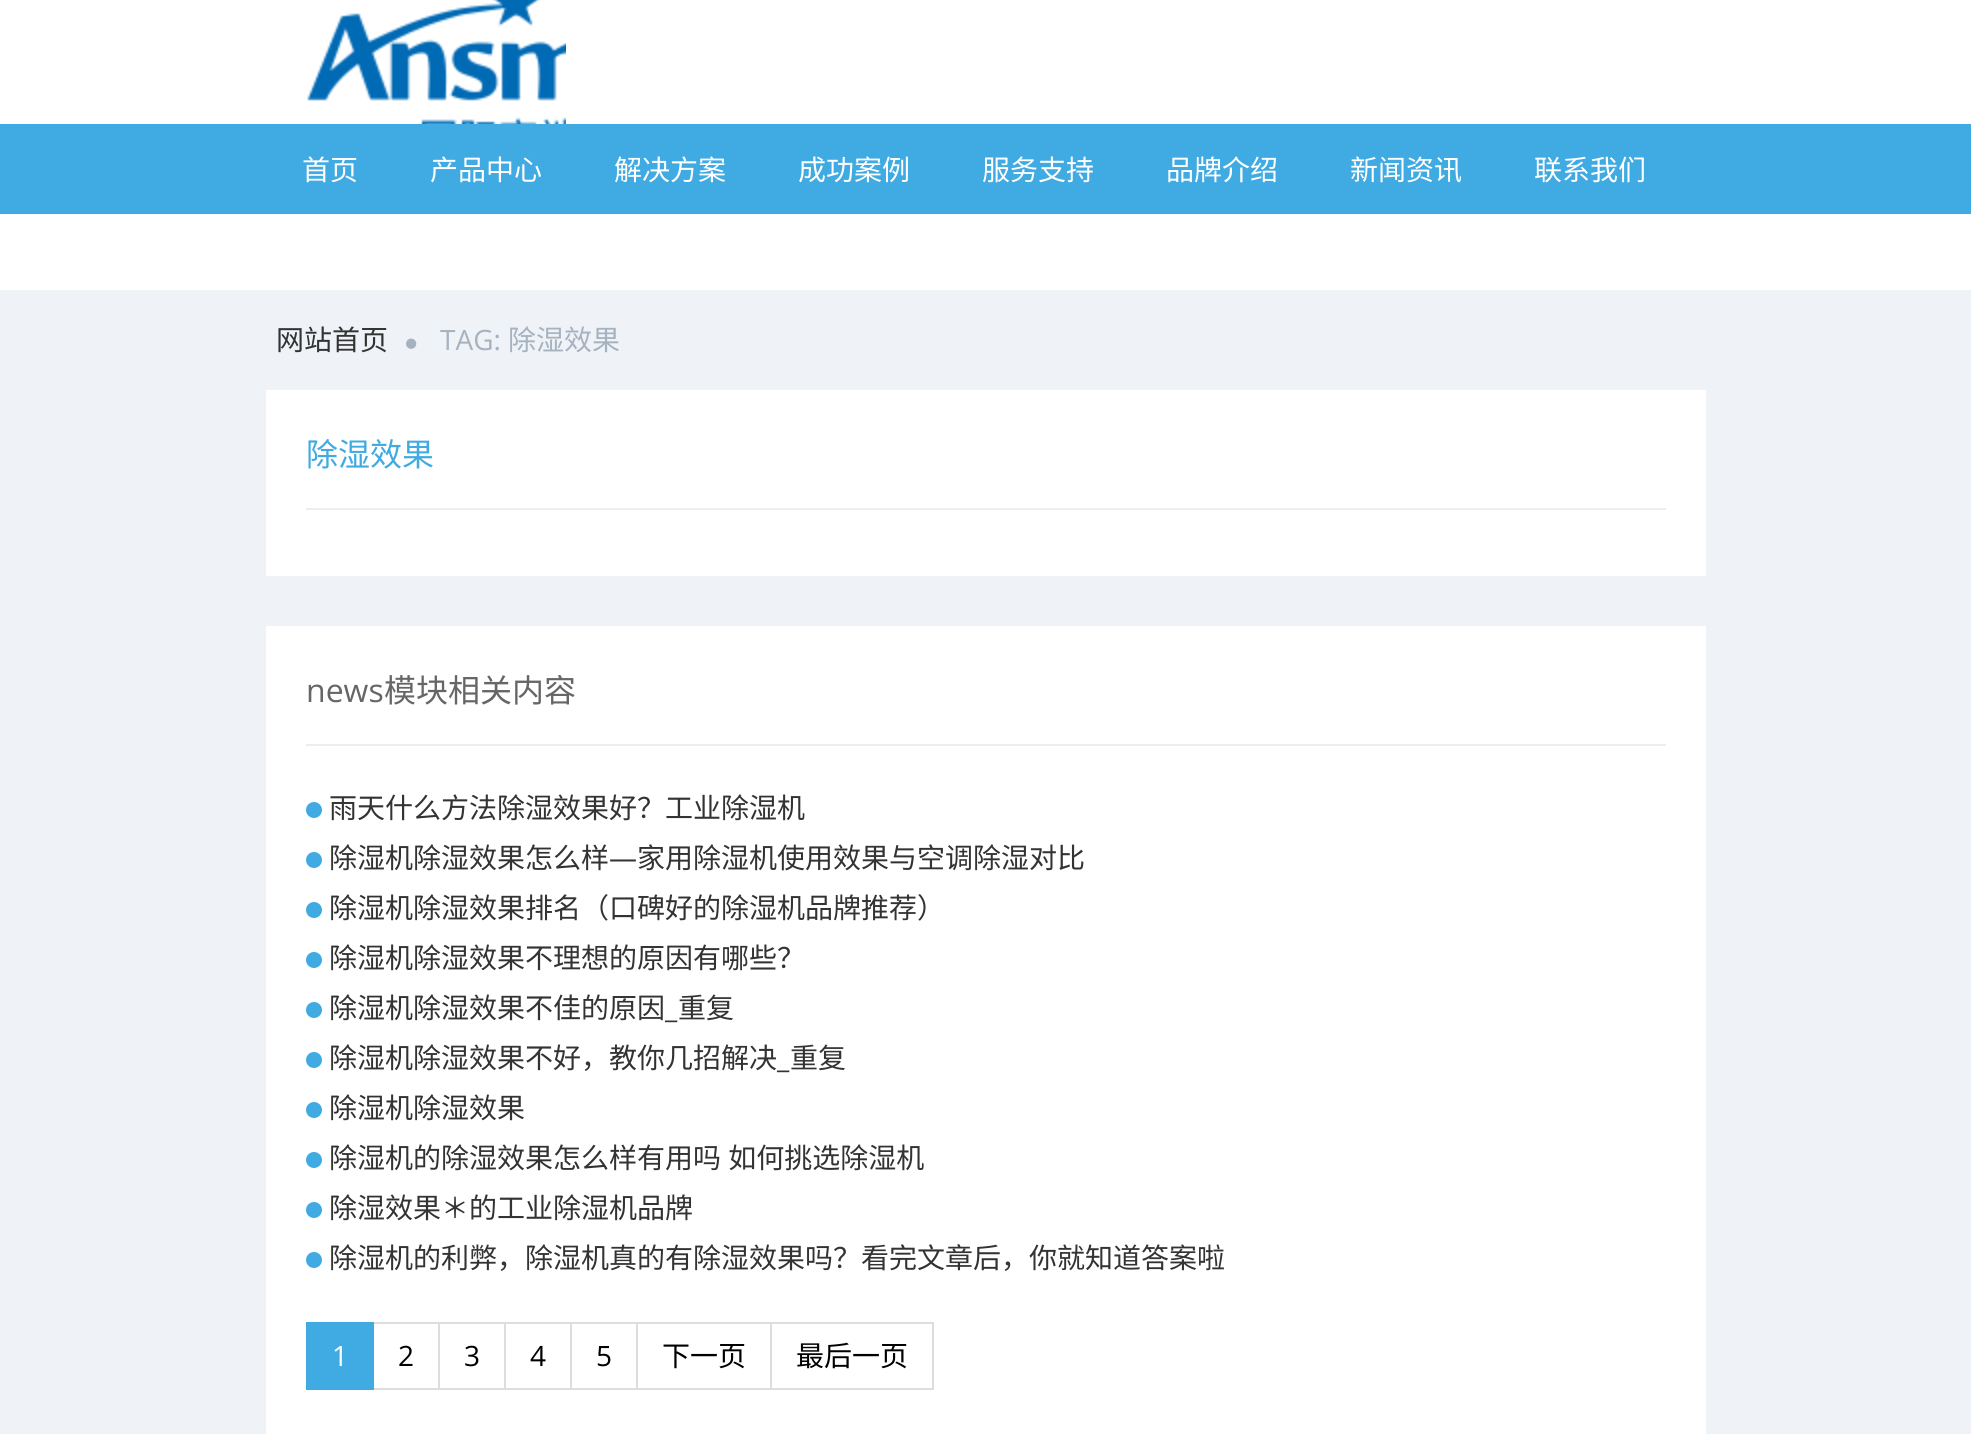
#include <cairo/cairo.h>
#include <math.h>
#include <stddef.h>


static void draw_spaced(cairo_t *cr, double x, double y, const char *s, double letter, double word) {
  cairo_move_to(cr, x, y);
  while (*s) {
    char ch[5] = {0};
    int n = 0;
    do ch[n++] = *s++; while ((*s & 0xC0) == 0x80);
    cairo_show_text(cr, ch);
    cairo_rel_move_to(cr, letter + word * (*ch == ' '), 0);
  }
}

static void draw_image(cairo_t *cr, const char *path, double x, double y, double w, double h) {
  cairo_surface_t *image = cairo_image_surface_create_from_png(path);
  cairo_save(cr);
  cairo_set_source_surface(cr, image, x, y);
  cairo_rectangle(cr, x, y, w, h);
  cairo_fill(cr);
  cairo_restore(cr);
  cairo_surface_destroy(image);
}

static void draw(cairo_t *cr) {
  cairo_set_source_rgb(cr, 1, 1, 1);
  cairo_paint(cr);
  draw_image(cr, "images/1.png", 307, 0, 259, 124);
  cairo_set_source_rgb(cr, 64 / 255.0, 170 / 255.0, 226 / 255.0);
  cairo_rectangle(cr, 0, 124, 1971, 90);
  cairo_fill(cr);
  cairo_set_source_rgb(cr, 239 / 255.0, 243 / 255.0, 248 / 255.0);
  cairo_rectangle(cr, 0, 290, 1971, 1144);
  cairo_fill(cr);
  draw_image(cr, "images/2.png", 406, 338, 11, 11);
  cairo_set_source_rgb(cr, 1, 1, 1);
  cairo_rectangle(cr, 266, 390, 1440, 186);
  cairo_fill(cr);
  cairo_set_source_rgb(cr, 238 / 255.0, 238 / 255.0, 238 / 255.0);
  cairo_rectangle(cr, 306, 508, 1360, 2);
  cairo_fill(cr);
  cairo_set_source_rgb(cr, 1, 1, 1);
  cairo_rectangle(cr, 266, 626, 1440, 808);
  cairo_fill(cr);
  cairo_set_source_rgb(cr, 238 / 255.0, 238 / 255.0, 238 / 255.0);
  cairo_rectangle(cr, 306, 744, 1360, 2);
  cairo_fill(cr);
  cairo_set_source_rgb(cr, 64 / 255.0, 170 / 255.0, 226 / 255.0);
  cairo_arc(cr, 314, 810, 8, 0, 2 * M_PI);
  cairo_fill(cr);
  cairo_arc(cr, 314, 860, 8, 0, 2 * M_PI);
  cairo_fill(cr);
  cairo_arc(cr, 314, 910, 8, 0, 2 * M_PI);
  cairo_fill(cr);
  cairo_arc(cr, 314, 960, 8, 0, 2 * M_PI);
  cairo_fill(cr);
  cairo_arc(cr, 314, 1010, 8, 0, 2 * M_PI);
  cairo_fill(cr);
  cairo_arc(cr, 314, 1060, 8, 0, 2 * M_PI);
  cairo_fill(cr);
  cairo_arc(cr, 314, 1110, 8, 0, 2 * M_PI);
  cairo_fill(cr);
  cairo_arc(cr, 314, 1160, 8, 0, 2 * M_PI);
  cairo_fill(cr);
  cairo_arc(cr, 314, 1210, 8, 0, 2 * M_PI);
  cairo_fill(cr);
  cairo_arc(cr, 314, 1260, 8, 0, 2 * M_PI);
  cairo_fill(cr);
  cairo_rectangle(cr, 373, 1323, 66, 66);
  cairo_set_source_rgb(cr, 221 / 255.0, 221 / 255.0, 221 / 255.0);
  cairo_stroke(cr);
  cairo_set_source_rgb(cr, 64 / 255.0, 170 / 255.0, 226 / 255.0);
  cairo_rectangle(cr, 306, 1322, 68, 68);
  cairo_fill(cr);
  cairo_rectangle(cr, 439, 1323, 66, 66);
  cairo_set_source_rgb(cr, 221 / 255.0, 221 / 255.0, 221 / 255.0);
  cairo_stroke(cr);
  cairo_rectangle(cr, 505, 1323, 66, 66);
  cairo_stroke(cr);
  cairo_rectangle(cr, 571, 1323, 66, 66);
  cairo_stroke(cr);
  cairo_rectangle(cr, 637, 1323, 134, 66);
  cairo_stroke(cr);
  cairo_rectangle(cr, 771, 1323, 162, 66);
  cairo_stroke(cr);
  cairo_select_font_face(cr, "Noto Sans CJK SC", CAIRO_FONT_SLANT_NORMAL, CAIRO_FONT_WEIGHT_NORMAL);
  cairo_set_font_size(cr, 28);
  cairo_set_source_rgb(cr, 1, 1, 1);
  cairo_move_to(cr, 302, 180);
  cairo_show_text(cr, "首页");
  cairo_move_to(cr, 430, 180);
  cairo_show_text(cr, "产品中心");
  cairo_move_to(cr, 614, 180);
  cairo_show_text(cr, "解决方案");
  cairo_move_to(cr, 798, 180);
  cairo_show_text(cr, "成功案例");
  cairo_move_to(cr, 982, 180);
  cairo_show_text(cr, "服务支持");
  cairo_move_to(cr, 1166, 180);
  cairo_show_text(cr, "品牌介绍");
  cairo_move_to(cr, 1350, 180);
  cairo_show_text(cr, "新闻资讯");
  cairo_move_to(cr, 1534, 180);
  cairo_show_text(cr, "联系我们");
  cairo_set_source_rgb(cr, 51 / 255.0, 51 / 255.0, 51 / 255.0);
  cairo_move_to(cr, 276, 350);
  cairo_show_text(cr, "网站首页");
  cairo_select_font_face(cr, "Open Sans", CAIRO_FONT_SLANT_NORMAL, CAIRO_FONT_WEIGHT_NORMAL);
  cairo_set_source_rgb(cr, 167 / 255.0, 178 / 255.0, 192 / 255.0);
  cairo_move_to(cr, 440, 350);
  cairo_show_text(cr, "TAG:");
  cairo_select_font_face(cr, "Noto Sans CJK SC", CAIRO_FONT_SLANT_NORMAL, CAIRO_FONT_WEIGHT_NORMAL);
  cairo_move_to(cr, 508, 350);
  cairo_show_text(cr, "除湿效果");
  cairo_set_font_size(cr, 32);
  cairo_set_source_rgb(cr, 64 / 255.0, 170 / 255.0, 226 / 255.0);
  cairo_move_to(cr, 306, 466);
  cairo_show_text(cr, "除湿效果");
  cairo_select_font_face(cr, "Open Sans", CAIRO_FONT_SLANT_NORMAL, CAIRO_FONT_WEIGHT_NORMAL);
  cairo_set_source_rgb(cr, 102 / 255.0, 102 / 255.0, 102 / 255.0);
  cairo_move_to(cr, 306, 702);
  cairo_show_text(cr, "news");
  cairo_select_font_face(cr, "Noto Sans CJK SC", CAIRO_FONT_SLANT_NORMAL, CAIRO_FONT_WEIGHT_NORMAL);
  cairo_move_to(cr, 384, 702);
  cairo_show_text(cr, "模块相关内容");
  cairo_set_font_size(cr, 28);
  cairo_set_source_rgb(cr, 51 / 255.0, 51 / 255.0, 51 / 255.0);
  cairo_move_to(cr, 329, 818);
  cairo_show_text(cr, "雨天什么方法除湿效果好？工业除湿机");
  cairo_move_to(cr, 329, 868);
  cairo_show_text(cr, "除湿机除湿效果怎么样");
  cairo_select_font_face(cr, "Open Sans", CAIRO_FONT_SLANT_NORMAL, CAIRO_FONT_WEIGHT_NORMAL);
  cairo_move_to(cr, 609, 868);
  cairo_show_text(cr, "—");
  cairo_select_font_face(cr, "Noto Sans CJK SC", CAIRO_FONT_SLANT_NORMAL, CAIRO_FONT_WEIGHT_NORMAL);
  cairo_move_to(cr, 637, 868);
  cairo_show_text(cr, "家用除湿机使用效果与空调除湿对比");
  cairo_move_to(cr, 329, 918);
  cairo_show_text(cr, "除湿机除湿效果排名（口碑好的除湿机品牌推荐）");
  cairo_move_to(cr, 329, 968);
  cairo_show_text(cr, "除湿机除湿效果不理想的原因有哪些？");
  cairo_move_to(cr, 329, 1018);
  cairo_show_text(cr, "除湿机除湿效果不佳的原因");
  cairo_move_to(cr, 678, 1018);
  cairo_show_text(cr, "重复");
  cairo_select_font_face(cr, "Open Sans", CAIRO_FONT_SLANT_NORMAL, CAIRO_FONT_WEIGHT_NORMAL);
  cairo_move_to(cr, 665, 1018);
  cairo_show_text(cr, "_");
  cairo_select_font_face(cr, "Noto Sans CJK SC", CAIRO_FONT_SLANT_NORMAL, CAIRO_FONT_WEIGHT_NORMAL);
  cairo_move_to(cr, 329, 1068);
  cairo_show_text(cr, "除湿机除湿效果不好，教你几招解决");
  cairo_move_to(cr, 790, 1068);
  cairo_show_text(cr, "重复");
  cairo_select_font_face(cr, "Open Sans", CAIRO_FONT_SLANT_NORMAL, CAIRO_FONT_WEIGHT_NORMAL);
  cairo_move_to(cr, 777, 1068);
  cairo_show_text(cr, "_");
  cairo_select_font_face(cr, "Noto Sans CJK SC", CAIRO_FONT_SLANT_NORMAL, CAIRO_FONT_WEIGHT_NORMAL);
  cairo_move_to(cr, 329, 1118);
  cairo_show_text(cr, "除湿机除湿效果");
  draw_spaced(cr, 329, 1168, "除湿机的除湿效果怎么样有用吗 如何挑选除湿机", 0, 1);
  cairo_move_to(cr, 329, 1218);
  cairo_show_text(cr, "除湿效果＊的工业除湿机品牌");
  cairo_move_to(cr, 329, 1268);
  cairo_show_text(cr, "除湿机的利弊，除湿机真的有除湿效果吗？看完文章后，你就知道答案啦");
  cairo_select_font_face(cr, "Open Sans", CAIRO_FONT_SLANT_NORMAL, CAIRO_FONT_WEIGHT_NORMAL);
  cairo_set_source_rgb(cr, 1, 1, 1);
  cairo_move_to(cr, 332, 1366);
  cairo_show_text(cr, "1");
  cairo_set_source_rgb(cr, 0, 0, 0);
  cairo_move_to(cr, 398, 1366);
  cairo_show_text(cr, "2");
  cairo_move_to(cr, 464, 1366);
  cairo_show_text(cr, "3");
  cairo_move_to(cr, 530, 1366);
  cairo_show_text(cr, "4");
  cairo_move_to(cr, 596, 1366);
  cairo_show_text(cr, "5");
  cairo_select_font_face(cr, "Noto Sans CJK SC", CAIRO_FONT_SLANT_NORMAL, CAIRO_FONT_WEIGHT_NORMAL);
  cairo_move_to(cr, 662, 1366);
  cairo_show_text(cr, "下一页");
  cairo_move_to(cr, 796, 1366);
  cairo_show_text(cr, "最后一页");
}

int main(void) {
  cairo_surface_t *surface = cairo_image_surface_create(CAIRO_FORMAT_RGB24, 1971, 1434);
  cairo_t *cr = cairo_create(surface);
  cairo_font_options_t *options = cairo_font_options_create();
  cairo_font_options_set_hint_metrics(options, CAIRO_HINT_METRICS_OFF);
  cairo_font_options_set_hint_style(options, CAIRO_HINT_STYLE_NONE);
  cairo_set_font_options(cr, options);
  cairo_set_miter_limit(cr, 4);
  draw(cr);
  cairo_surface_write_to_png(surface, "out.png");
  cairo_font_options_destroy(options);
  cairo_destroy(cr);
  cairo_surface_destroy(surface);
  return 0;
}
